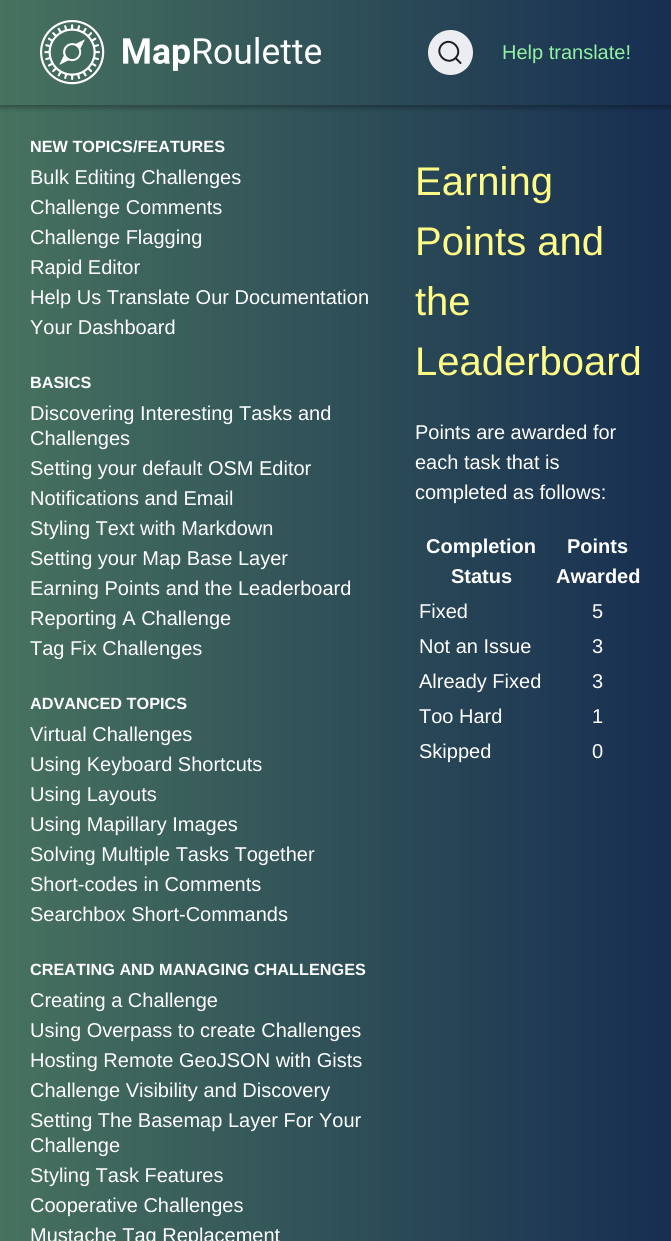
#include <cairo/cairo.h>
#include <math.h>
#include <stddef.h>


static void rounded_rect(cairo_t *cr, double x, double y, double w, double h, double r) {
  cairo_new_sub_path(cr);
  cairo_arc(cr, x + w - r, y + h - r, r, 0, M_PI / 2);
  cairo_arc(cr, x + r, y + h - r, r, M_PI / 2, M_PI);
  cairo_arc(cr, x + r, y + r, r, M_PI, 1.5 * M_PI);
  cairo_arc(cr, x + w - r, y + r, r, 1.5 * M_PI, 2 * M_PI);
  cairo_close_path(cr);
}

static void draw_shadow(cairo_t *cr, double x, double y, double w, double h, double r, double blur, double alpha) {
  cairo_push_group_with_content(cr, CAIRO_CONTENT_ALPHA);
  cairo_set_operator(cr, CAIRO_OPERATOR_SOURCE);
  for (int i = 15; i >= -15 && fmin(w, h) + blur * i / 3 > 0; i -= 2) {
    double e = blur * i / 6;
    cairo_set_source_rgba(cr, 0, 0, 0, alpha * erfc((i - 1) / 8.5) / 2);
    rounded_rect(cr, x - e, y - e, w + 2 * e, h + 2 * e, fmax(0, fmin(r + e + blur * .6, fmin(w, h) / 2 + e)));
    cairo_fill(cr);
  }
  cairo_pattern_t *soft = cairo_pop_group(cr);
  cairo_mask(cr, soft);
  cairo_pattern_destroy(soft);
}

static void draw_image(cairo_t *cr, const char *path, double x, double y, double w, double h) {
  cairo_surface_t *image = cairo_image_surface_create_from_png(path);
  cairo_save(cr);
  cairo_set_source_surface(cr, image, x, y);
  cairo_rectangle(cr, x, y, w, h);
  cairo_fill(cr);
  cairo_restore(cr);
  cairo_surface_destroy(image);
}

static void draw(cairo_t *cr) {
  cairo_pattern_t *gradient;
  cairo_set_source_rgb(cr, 1, 1, 1);
  cairo_paint(cr);
  gradient = cairo_pattern_create_linear(0, 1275, 671, 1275);
  cairo_pattern_add_color_stop_rgba(gradient, 0, 71 / 255.0, 114 / 255.0, 95 / 255.0, 1);
  cairo_pattern_add_color_stop_rgba(gradient, 1, 23 / 255.0, 46 / 255.0, 81 / 255.0, 1);
  cairo_set_source(cr, gradient);
  cairo_pattern_destroy(gradient);
  cairo_rectangle(cr, 0, 0, 671, 1241);
  cairo_fill(cr);
  cairo_save(cr);
  cairo_rectangle(cr, 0, 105, 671, 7);
  cairo_clip(cr);
  cairo_set_source_rgb(cr, 0, 0, 0);
  draw_shadow(cr, 0, 3, 671, 105, 0, 2.5, 0.3);
  cairo_restore(cr);
  draw_image(cr, "images/1.png", 40, 20, 281, 65);
  cairo_set_source_rgb(cr, 235 / 255.0, 237 / 255.0, 240 / 255.0);
  cairo_arc(cr, 450.5, 52.5, 22.5, 0, 2 * M_PI);
  cairo_fill(cr);
  cairo_new_path(cr);
  cairo_move_to(cr, 455.5, 58);
  cairo_line_to(cr, 460.5, 63);
  cairo_line_to(cr, 455.5, 58);
  cairo_curve_to(cr, 447, 66.5, 433.5, 53.5, 442, 44.5);
  cairo_curve_to(cr, 451, 36, 464, 49.5, 455.5, 58);
  cairo_close_path(cr);
  cairo_set_source_rgb(cr, 28 / 255.0, 30 / 255.0, 33 / 255.0);
  cairo_set_line_cap(cr, CAIRO_LINE_CAP_ROUND);
  cairo_set_line_join(cr, CAIRO_LINE_JOIN_ROUND);
  cairo_stroke(cr);
  cairo_select_font_face(cr, "Liberation Sans", CAIRO_FONT_SLANT_NORMAL, CAIRO_FONT_WEIGHT_NORMAL);
  cairo_set_font_size(cr, 20);
  cairo_set_source_rgb(cr, 145 / 255.0, 243 / 255.0, 162 / 255.0);
  cairo_move_to(cr, 502, 59);
  cairo_show_text(cr, "Help translate!");
  cairo_select_font_face(cr, "Liberation Sans", CAIRO_FONT_SLANT_NORMAL, CAIRO_FONT_WEIGHT_BOLD);
  cairo_set_font_size(cr, 16.25);
  cairo_set_source_rgb(cr, 1, 1, 1);
  cairo_move_to(cr, 30, 152);
  cairo_show_text(cr, "NEW TOPICS/FEATURES");
  cairo_select_font_face(cr, "Liberation Sans", CAIRO_FONT_SLANT_NORMAL, CAIRO_FONT_WEIGHT_NORMAL);
  cairo_set_font_size(cr, 20);
  cairo_move_to(cr, 30, 184);
  cairo_show_text(cr, "Bulk Editing Challenges");
  cairo_move_to(cr, 30, 214);
  cairo_show_text(cr, "Challenge Comments");
  cairo_move_to(cr, 30, 244);
  cairo_show_text(cr, "Challenge Flagging");
  cairo_move_to(cr, 30, 274);
  cairo_show_text(cr, "Rapid Editor");
  cairo_move_to(cr, 30, 304);
  cairo_show_text(cr, "Help Us Translate Our Documentation");
  cairo_move_to(cr, 30, 334);
  cairo_show_text(cr, "Your Dashboard");
  cairo_select_font_face(cr, "Liberation Sans", CAIRO_FONT_SLANT_NORMAL, CAIRO_FONT_WEIGHT_BOLD);
  cairo_set_font_size(cr, 16.25);
  cairo_move_to(cr, 30, 388);
  cairo_show_text(cr, "BASICS");
  cairo_select_font_face(cr, "Liberation Sans", CAIRO_FONT_SLANT_NORMAL, CAIRO_FONT_WEIGHT_NORMAL);
  cairo_set_font_size(cr, 20);
  cairo_move_to(cr, 30, 420);
  cairo_show_text(cr, "Discovering Interesting Tasks and");
  cairo_move_to(cr, 30, 445);
  cairo_show_text(cr, "Challenges");
  cairo_move_to(cr, 30, 475);
  cairo_show_text(cr, "Setting your default OSM Editor");
  cairo_move_to(cr, 30, 505);
  cairo_show_text(cr, "Notifications and Email");
  cairo_move_to(cr, 30, 535);
  cairo_show_text(cr, "Styling Text with Markdown");
  cairo_move_to(cr, 30, 565);
  cairo_show_text(cr, "Setting your Map Base Layer");
  cairo_move_to(cr, 30, 595);
  cairo_show_text(cr, "Earning Points and the Leaderboard");
  cairo_move_to(cr, 30, 625);
  cairo_show_text(cr, "Reporting A Challenge");
  cairo_move_to(cr, 30, 655);
  cairo_show_text(cr, "Tag Fix Challenges");
  cairo_select_font_face(cr, "Liberation Sans", CAIRO_FONT_SLANT_NORMAL, CAIRO_FONT_WEIGHT_BOLD);
  cairo_set_font_size(cr, 16.25);
  cairo_move_to(cr, 30, 709);
  cairo_show_text(cr, "ADVANCED TOPICS");
  cairo_select_font_face(cr, "Liberation Sans", CAIRO_FONT_SLANT_NORMAL, CAIRO_FONT_WEIGHT_NORMAL);
  cairo_set_font_size(cr, 20);
  cairo_move_to(cr, 30, 741);
  cairo_show_text(cr, "Virtual Challenges");
  cairo_move_to(cr, 30, 771);
  cairo_show_text(cr, "Using Keyboard Shortcuts");
  cairo_move_to(cr, 30, 801);
  cairo_show_text(cr, "Using Layouts");
  cairo_move_to(cr, 30, 831);
  cairo_show_text(cr, "Using Mapillary Images");
  cairo_move_to(cr, 30, 861);
  cairo_show_text(cr, "Solving Multiple Tasks Together");
  cairo_move_to(cr, 30, 891);
  cairo_show_text(cr, "Short-codes in Comments");
  cairo_move_to(cr, 30, 921);
  cairo_show_text(cr, "Searchbox Short-Commands");
  cairo_select_font_face(cr, "Liberation Sans", CAIRO_FONT_SLANT_NORMAL, CAIRO_FONT_WEIGHT_BOLD);
  cairo_set_font_size(cr, 16.25);
  cairo_move_to(cr, 30, 975);
  cairo_show_text(cr, "CREATING AND MANAGING CHALLENGES");
  cairo_select_font_face(cr, "Liberation Sans", CAIRO_FONT_SLANT_NORMAL, CAIRO_FONT_WEIGHT_NORMAL);
  cairo_set_font_size(cr, 20);
  cairo_move_to(cr, 30, 1007);
  cairo_show_text(cr, "Creating a Challenge");
  cairo_move_to(cr, 30, 1037);
  cairo_show_text(cr, "Using Overpass to create Challenges");
  cairo_move_to(cr, 30, 1067);
  cairo_show_text(cr, "Hosting Remote GeoJSON with Gists");
  cairo_move_to(cr, 30, 1097);
  cairo_show_text(cr, "Challenge Visibility and Discovery");
  cairo_move_to(cr, 30, 1127);
  cairo_show_text(cr, "Setting The Basemap Layer For Your");
  cairo_move_to(cr, 30, 1152);
  cairo_show_text(cr, "Challenge");
  cairo_move_to(cr, 30, 1182);
  cairo_show_text(cr, "Styling Task Features");
  cairo_move_to(cr, 30, 1212);
  cairo_show_text(cr, "Cooperative Challenges");
  cairo_move_to(cr, 30, 1242);
  cairo_show_text(cr, "Mustache Tag Replacement");
  cairo_set_font_size(cr, 40);
  cairo_set_source_rgb(cr, 1, 253 / 255.0, 134 / 255.0);
  cairo_move_to(cr, 415, 195);
  cairo_show_text(cr, "Earning");
  cairo_move_to(cr, 415, 255);
  cairo_show_text(cr, "Points and");
  cairo_move_to(cr, 415, 315);
  cairo_show_text(cr, "the");
  cairo_move_to(cr, 415, 375);
  cairo_show_text(cr, "Leaderboard");
  cairo_set_font_size(cr, 20);
  cairo_set_source_rgb(cr, 1, 1, 1);
  cairo_move_to(cr, 415, 439);
  cairo_show_text(cr, "Points are awarded for");
  cairo_move_to(cr, 415, 469);
  cairo_show_text(cr, "each task that is");
  cairo_move_to(cr, 415, 499);
  cairo_show_text(cr, "completed as follows:");
  cairo_select_font_face(cr, "Liberation Sans", CAIRO_FONT_SLANT_NORMAL, CAIRO_FONT_WEIGHT_BOLD);
  cairo_move_to(cr, 426, 553);
  cairo_show_text(cr, "Completion");
  cairo_move_to(cr, 451, 583);
  cairo_show_text(cr, "Status");
  cairo_move_to(cr, 567, 553);
  cairo_show_text(cr, "Points");
  cairo_move_to(cr, 556, 583);
  cairo_show_text(cr, "Awarded");
  cairo_select_font_face(cr, "Liberation Sans", CAIRO_FONT_SLANT_NORMAL, CAIRO_FONT_WEIGHT_NORMAL);
  cairo_move_to(cr, 419, 618);
  cairo_show_text(cr, "Fixed");
  cairo_move_to(cr, 592, 618);
  cairo_show_text(cr, "5");
  cairo_move_to(cr, 419, 653);
  cairo_show_text(cr, "Not an Issue");
  cairo_move_to(cr, 592, 653);
  cairo_show_text(cr, "3");
  cairo_move_to(cr, 419, 688);
  cairo_show_text(cr, "Already Fixed");
  cairo_move_to(cr, 592, 688);
  cairo_show_text(cr, "3");
  cairo_move_to(cr, 419, 723);
  cairo_show_text(cr, "Too Hard");
  cairo_move_to(cr, 592, 723);
  cairo_show_text(cr, "1");
  cairo_move_to(cr, 419, 758);
  cairo_show_text(cr, "Skipped");
  cairo_move_to(cr, 592, 758);
  cairo_show_text(cr, "0");
}

int main(void) {
  cairo_surface_t *surface = cairo_image_surface_create(CAIRO_FORMAT_RGB24, 671, 1241);
  cairo_t *cr = cairo_create(surface);
  cairo_font_options_t *options = cairo_font_options_create();
  cairo_font_options_set_hint_metrics(options, CAIRO_HINT_METRICS_OFF);
  cairo_font_options_set_hint_style(options, CAIRO_HINT_STYLE_NONE);
  cairo_set_font_options(cr, options);
  cairo_set_miter_limit(cr, 4);
  draw(cr);
  cairo_surface_write_to_png(surface, "out.png");
  cairo_font_options_destroy(options);
  cairo_destroy(cr);
  cairo_surface_destroy(surface);
  return 0;
}
